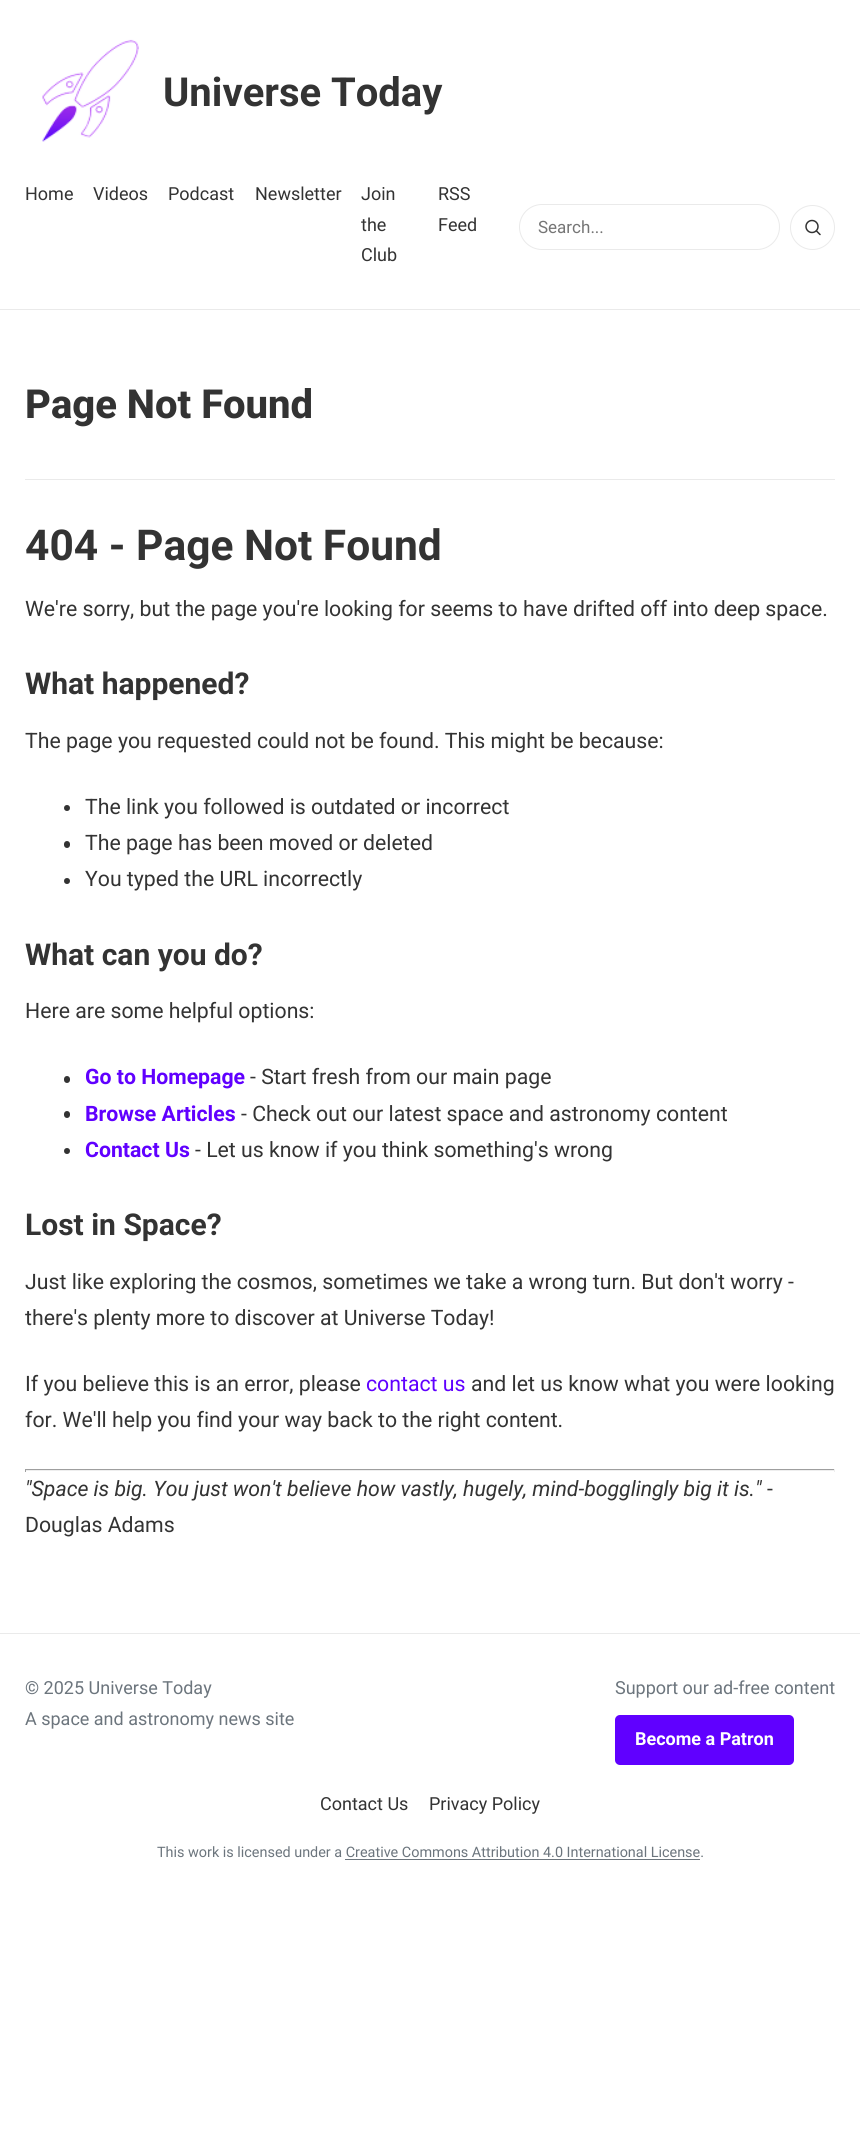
#include <cairo/cairo.h>
#include <math.h>
#include <stddef.h>


static void rounded_rect(cairo_t *cr, double x, double y, double w, double h, double r) {
  cairo_new_sub_path(cr);
  cairo_arc(cr, x + w - r, y + h - r, r, 0, M_PI / 2);
  cairo_arc(cr, x + r, y + h - r, r, M_PI / 2, M_PI);
  cairo_arc(cr, x + r, y + r, r, M_PI, 1.5 * M_PI);
  cairo_arc(cr, x + w - r, y + r, r, 1.5 * M_PI, 2 * M_PI);
  cairo_close_path(cr);
}

static void draw_image(cairo_t *cr, const char *path, double x, double y, double w, double h) {
  cairo_surface_t *image = cairo_image_surface_create_from_png(path);
  cairo_save(cr);
  cairo_set_source_surface(cr, image, x, y);
  cairo_rectangle(cr, x, y, w, h);
  cairo_fill(cr);
  cairo_restore(cr);
  cairo_surface_destroy(image);
}

static void draw(cairo_t *cr) {
  cairo_set_source_rgb(cr, 1, 1, 1);
  cairo_paint(cr);
  cairo_set_source_rgb(cr, 234 / 255.0, 234 / 255.0, 234 / 255.0);
  cairo_rectangle(cr, 0, 309, 860, 1);
  cairo_fill(cr);
  draw_image(cr, "images/1.png", 42, 39, 97, 103);
  rounded_rect(cr, 519.5, 204.5, 260, 45, 22.5);
  cairo_set_line_width(cr, 1);
  cairo_stroke(cr);
  cairo_arc(cr, 812.5, 227.5, 22, 0, 2 * M_PI);
  cairo_stroke(cr);
  cairo_arc(cr, 812, 226.5, 6, 0, 2 * M_PI);
  cairo_set_source_rgb(cr, 51 / 255.0, 51 / 255.0, 51 / 255.0);
  cairo_set_line_width(cr, 1.5);
  cairo_stroke(cr);
  cairo_new_path(cr);
  cairo_move_to(cr, 820, 234.5);
  cairo_line_to(cr, 816.5, 231);
  cairo_set_line_cap(cr, CAIRO_LINE_CAP_ROUND);
  cairo_set_line_join(cr, CAIRO_LINE_JOIN_ROUND);
  cairo_stroke(cr);
  cairo_set_source_rgb(cr, 234 / 255.0, 234 / 255.0, 234 / 255.0);
  cairo_rectangle(cr, 25, 479, 810, 1);
  cairo_fill(cr);
  cairo_set_source_rgb(cr, 51 / 255.0, 51 / 255.0, 51 / 255.0);
  cairo_arc(cr, 67, 808, 3, 0, 2 * M_PI);
  cairo_fill(cr);
  rounded_rect(cr, 64, 841, 6, 7, 3);
  cairo_fill(cr);
  cairo_arc(cr, 67, 881, 3, 0, 2 * M_PI);
  cairo_fill(cr);
  rounded_rect(cr, 64, 1076, 6, 7, 3);
  cairo_fill(cr);
  rounded_rect(cr, 64, 1111, 6, 7, 3);
  cairo_fill(cr);
  cairo_arc(cr, 67, 1151, 3, 0, 2 * M_PI);
  cairo_fill(cr);
  cairo_set_source_rgb(cr, 159 / 255.0, 159 / 255.0, 159 / 255.0);
  cairo_rectangle(cr, 25, 1469, 810, 1);
  cairo_fill(cr);
  cairo_set_source_rgb(cr, 238 / 255.0, 238 / 255.0, 238 / 255.0);
  cairo_rectangle(cr, 834, 1469, 1, 3);
  cairo_fill(cr);
  cairo_rectangle(cr, 25, 1470, 810, 1);
  cairo_fill(cr);
  cairo_set_source_rgb(cr, 159 / 255.0, 159 / 255.0, 159 / 255.0);
  cairo_rectangle(cr, 25, 1469, 1, 3);
  cairo_fill(cr);
  cairo_set_source_rgb(cr, 234 / 255.0, 234 / 255.0, 234 / 255.0);
  cairo_rectangle(cr, 0, 1633, 860, 1);
  cairo_fill(cr);
  cairo_set_source_rgb(cr, 96 / 255.0, 0, 1);
  rounded_rect(cr, 615, 1715, 179, 50, 5);
  cairo_fill(cr);
  cairo_set_source_rgb(cr, 108 / 255.0, 117 / 255.0, 125 / 255.0);
  cairo_rectangle(cr, 345, 1859, 355, 1);
  cairo_fill(cr);
  cairo_select_font_face(cr, "Roboto", CAIRO_FONT_SLANT_NORMAL, CAIRO_FONT_WEIGHT_BOLD);
  cairo_set_font_size(cr, 40);
  cairo_set_source_rgb(cr, 51 / 255.0, 51 / 255.0, 51 / 255.0);
  cairo_move_to(cr, 163, 106);
  cairo_show_text(cr, "Universe Today");
  cairo_select_font_face(cr, "Roboto", CAIRO_FONT_SLANT_NORMAL, CAIRO_FONT_WEIGHT_NORMAL);
  cairo_set_font_size(cr, 18);
  cairo_move_to(cr, 25, 200);
  cairo_show_text(cr, "Home");
  cairo_move_to(cr, 93, 200);
  cairo_show_text(cr, "Videos");
  cairo_move_to(cr, 168, 200);
  cairo_show_text(cr, "Podcast");
  cairo_move_to(cr, 255, 200);
  cairo_show_text(cr, "Newsletter");
  cairo_move_to(cr, 361, 200);
  cairo_show_text(cr, "Join");
  cairo_move_to(cr, 361, 231);
  cairo_show_text(cr, "the");
  cairo_move_to(cr, 361, 261);
  cairo_show_text(cr, "Club");
  cairo_move_to(cr, 438, 200);
  cairo_show_text(cr, "RSS");
  cairo_move_to(cr, 438, 231);
  cairo_show_text(cr, "Feed");
  cairo_set_font_size(cr, 17);
  cairo_set_source_rgb(cr, 117 / 255.0, 117 / 255.0, 117 / 255.0);
  cairo_move_to(cr, 538, 233);
  cairo_show_text(cr, "Search...");
  cairo_select_font_face(cr, "Roboto ExtraBold", CAIRO_FONT_SLANT_NORMAL, CAIRO_FONT_WEIGHT_NORMAL);
  cairo_set_font_size(cr, 40);
  cairo_set_source_rgb(cr, 51 / 255.0, 51 / 255.0, 51 / 255.0);
  cairo_move_to(cr, 25, 418);
  cairo_show_text(cr, "Page Not Found");
  cairo_select_font_face(cr, "Roboto", CAIRO_FONT_SLANT_NORMAL, CAIRO_FONT_WEIGHT_BOLD);
  cairo_set_font_size(cr, 42.5);
  cairo_move_to(cr, 25, 560);
  cairo_show_text(cr, "404 - Page Not Found");
  cairo_select_font_face(cr, "Roboto", CAIRO_FONT_SLANT_NORMAL, CAIRO_FONT_WEIGHT_NORMAL);
  cairo_set_font_size(cr, 21.25);
  cairo_move_to(cr, 25, 616);
  cairo_show_text(cr, "We're sorry, but the page you're looking for seems to have drifted off into deep space.");
  cairo_select_font_face(cr, "Roboto", CAIRO_FONT_SLANT_NORMAL, CAIRO_FONT_WEIGHT_BOLD);
  cairo_set_font_size(cr, 30);
  cairo_move_to(cr, 25, 694);
  cairo_show_text(cr, "What happened?");
  cairo_select_font_face(cr, "Roboto", CAIRO_FONT_SLANT_NORMAL, CAIRO_FONT_WEIGHT_NORMAL);
  cairo_set_font_size(cr, 21.25);
  cairo_move_to(cr, 25, 748);
  cairo_show_text(cr, "The page you requested could not be found. This might be because:");
  cairo_move_to(cr, 85, 814);
  cairo_show_text(cr, "The link you followed is outdated or incorrect");
  cairo_move_to(cr, 85, 850);
  cairo_show_text(cr, "The page has been moved or deleted");
  cairo_move_to(cr, 85, 886);
  cairo_show_text(cr, "You typed the URL incorrectly");
  cairo_select_font_face(cr, "Roboto", CAIRO_FONT_SLANT_NORMAL, CAIRO_FONT_WEIGHT_BOLD);
  cairo_set_font_size(cr, 30);
  cairo_move_to(cr, 25, 965);
  cairo_show_text(cr, "What can you do?");
  cairo_select_font_face(cr, "Roboto", CAIRO_FONT_SLANT_NORMAL, CAIRO_FONT_WEIGHT_NORMAL);
  cairo_set_font_size(cr, 21.25);
  cairo_move_to(cr, 25, 1018);
  cairo_show_text(cr, "Here are some helpful options:");
  cairo_select_font_face(cr, "Roboto", CAIRO_FONT_SLANT_NORMAL, CAIRO_FONT_WEIGHT_BOLD);
  cairo_set_source_rgb(cr, 96 / 255.0, 0, 1);
  cairo_move_to(cr, 85, 1084);
  cairo_show_text(cr, "Go to Homepage");
  cairo_select_font_face(cr, "Roboto", CAIRO_FONT_SLANT_NORMAL, CAIRO_FONT_WEIGHT_NORMAL);
  cairo_set_source_rgb(cr, 51 / 255.0, 51 / 255.0, 51 / 255.0);
  cairo_move_to(cr, 250, 1084);
  cairo_show_text(cr, "- Start fresh from our main page");
  cairo_select_font_face(cr, "Roboto", CAIRO_FONT_SLANT_NORMAL, CAIRO_FONT_WEIGHT_BOLD);
  cairo_set_source_rgb(cr, 96 / 255.0, 0, 1);
  cairo_move_to(cr, 85, 1121);
  cairo_show_text(cr, "Browse Articles");
  cairo_select_font_face(cr, "Roboto", CAIRO_FONT_SLANT_NORMAL, CAIRO_FONT_WEIGHT_NORMAL);
  cairo_set_source_rgb(cr, 51 / 255.0, 51 / 255.0, 51 / 255.0);
  cairo_move_to(cr, 241, 1121);
  cairo_show_text(cr, "- Check out our latest space and astronomy content");
  cairo_select_font_face(cr, "Roboto", CAIRO_FONT_SLANT_NORMAL, CAIRO_FONT_WEIGHT_BOLD);
  cairo_set_source_rgb(cr, 96 / 255.0, 0, 1);
  cairo_move_to(cr, 85, 1157);
  cairo_show_text(cr, "Contact Us");
  cairo_select_font_face(cr, "Roboto", CAIRO_FONT_SLANT_NORMAL, CAIRO_FONT_WEIGHT_NORMAL);
  cairo_set_source_rgb(cr, 51 / 255.0, 51 / 255.0, 51 / 255.0);
  cairo_move_to(cr, 195, 1157);
  cairo_show_text(cr, "- Let us know if you think something's wrong");
  cairo_select_font_face(cr, "Roboto", CAIRO_FONT_SLANT_NORMAL, CAIRO_FONT_WEIGHT_BOLD);
  cairo_set_font_size(cr, 30);
  cairo_move_to(cr, 25, 1235);
  cairo_show_text(cr, "Lost in Space?");
  cairo_select_font_face(cr, "Roboto", CAIRO_FONT_SLANT_NORMAL, CAIRO_FONT_WEIGHT_NORMAL);
  cairo_set_font_size(cr, 21.25);
  cairo_move_to(cr, 25, 1289);
  cairo_show_text(cr, "Just like exploring the cosmos, sometimes we take a wrong turn. But don't worry -");
  cairo_move_to(cr, 25, 1325);
  cairo_show_text(cr, "there's plenty more to discover at Universe Today!");
  cairo_move_to(cr, 25, 1391);
  cairo_show_text(cr, "If you believe this is an error, please");
  cairo_set_source_rgb(cr, 96 / 255.0, 0, 1);
  cairo_move_to(cr, 366, 1391);
  cairo_show_text(cr, "contact us");
  cairo_set_source_rgb(cr, 51 / 255.0, 51 / 255.0, 51 / 255.0);
  cairo_move_to(cr, 471, 1391);
  cairo_show_text(cr, "and let us know what you were looking");
  cairo_move_to(cr, 25, 1427);
  cairo_show_text(cr, "for. We'll help you find your way back to the right content.");
  cairo_select_font_face(cr, "Roboto", CAIRO_FONT_SLANT_ITALIC, CAIRO_FONT_WEIGHT_NORMAL);
  cairo_move_to(cr, 25, 1496);
  cairo_show_text(cr, "\"Space is big. You just won't believe how vastly, hugely, mind-bogglingly big it is.\"");
  cairo_select_font_face(cr, "Roboto", CAIRO_FONT_SLANT_NORMAL, CAIRO_FONT_WEIGHT_NORMAL);
  cairo_move_to(cr, 767, 1496);
  cairo_show_text(cr, "-");
  cairo_move_to(cr, 25, 1532);
  cairo_show_text(cr, "Douglas Adams");
  cairo_set_font_size(cr, 18);
  cairo_set_source_rgb(cr, 108 / 255.0, 117 / 255.0, 125 / 255.0);
  cairo_move_to(cr, 25, 1694);
  cairo_show_text(cr, "© 2025 Universe Today");
  cairo_move_to(cr, 25, 1725);
  cairo_show_text(cr, "A space and astronomy news site");
  cairo_move_to(cr, 615, 1694);
  cairo_show_text(cr, "Support our ad-free content");
  cairo_select_font_face(cr, "Roboto", CAIRO_FONT_SLANT_NORMAL, CAIRO_FONT_WEIGHT_BOLD);
  cairo_set_source_rgb(cr, 1, 1, 1);
  cairo_move_to(cr, 635, 1745);
  cairo_show_text(cr, "Become a Patron");
  cairo_select_font_face(cr, "Roboto", CAIRO_FONT_SLANT_NORMAL, CAIRO_FONT_WEIGHT_NORMAL);
  cairo_set_source_rgb(cr, 51 / 255.0, 51 / 255.0, 51 / 255.0);
  cairo_move_to(cr, 320, 1810);
  cairo_show_text(cr, "Contact Us");
  cairo_move_to(cr, 429, 1810);
  cairo_show_text(cr, "Privacy Policy");
  cairo_set_font_size(cr, 14.4);
  cairo_set_source_rgb(cr, 108 / 255.0, 117 / 255.0, 125 / 255.0);
  cairo_move_to(cr, 157, 1857);
  cairo_show_text(cr, "This work is licensed under a Creative Commons Attribution 4.0 International License.");
}

int main(void) {
  cairo_surface_t *surface = cairo_image_surface_create(CAIRO_FORMAT_RGB24, 860, 2131);
  cairo_t *cr = cairo_create(surface);
  cairo_font_options_t *options = cairo_font_options_create();
  cairo_font_options_set_hint_metrics(options, CAIRO_HINT_METRICS_OFF);
  cairo_font_options_set_hint_style(options, CAIRO_HINT_STYLE_NONE);
  cairo_set_font_options(cr, options);
  cairo_set_miter_limit(cr, 4);
  draw(cr);
  cairo_surface_write_to_png(surface, "out.png");
  cairo_font_options_destroy(options);
  cairo_destroy(cr);
  cairo_surface_destroy(surface);
  return 0;
}
